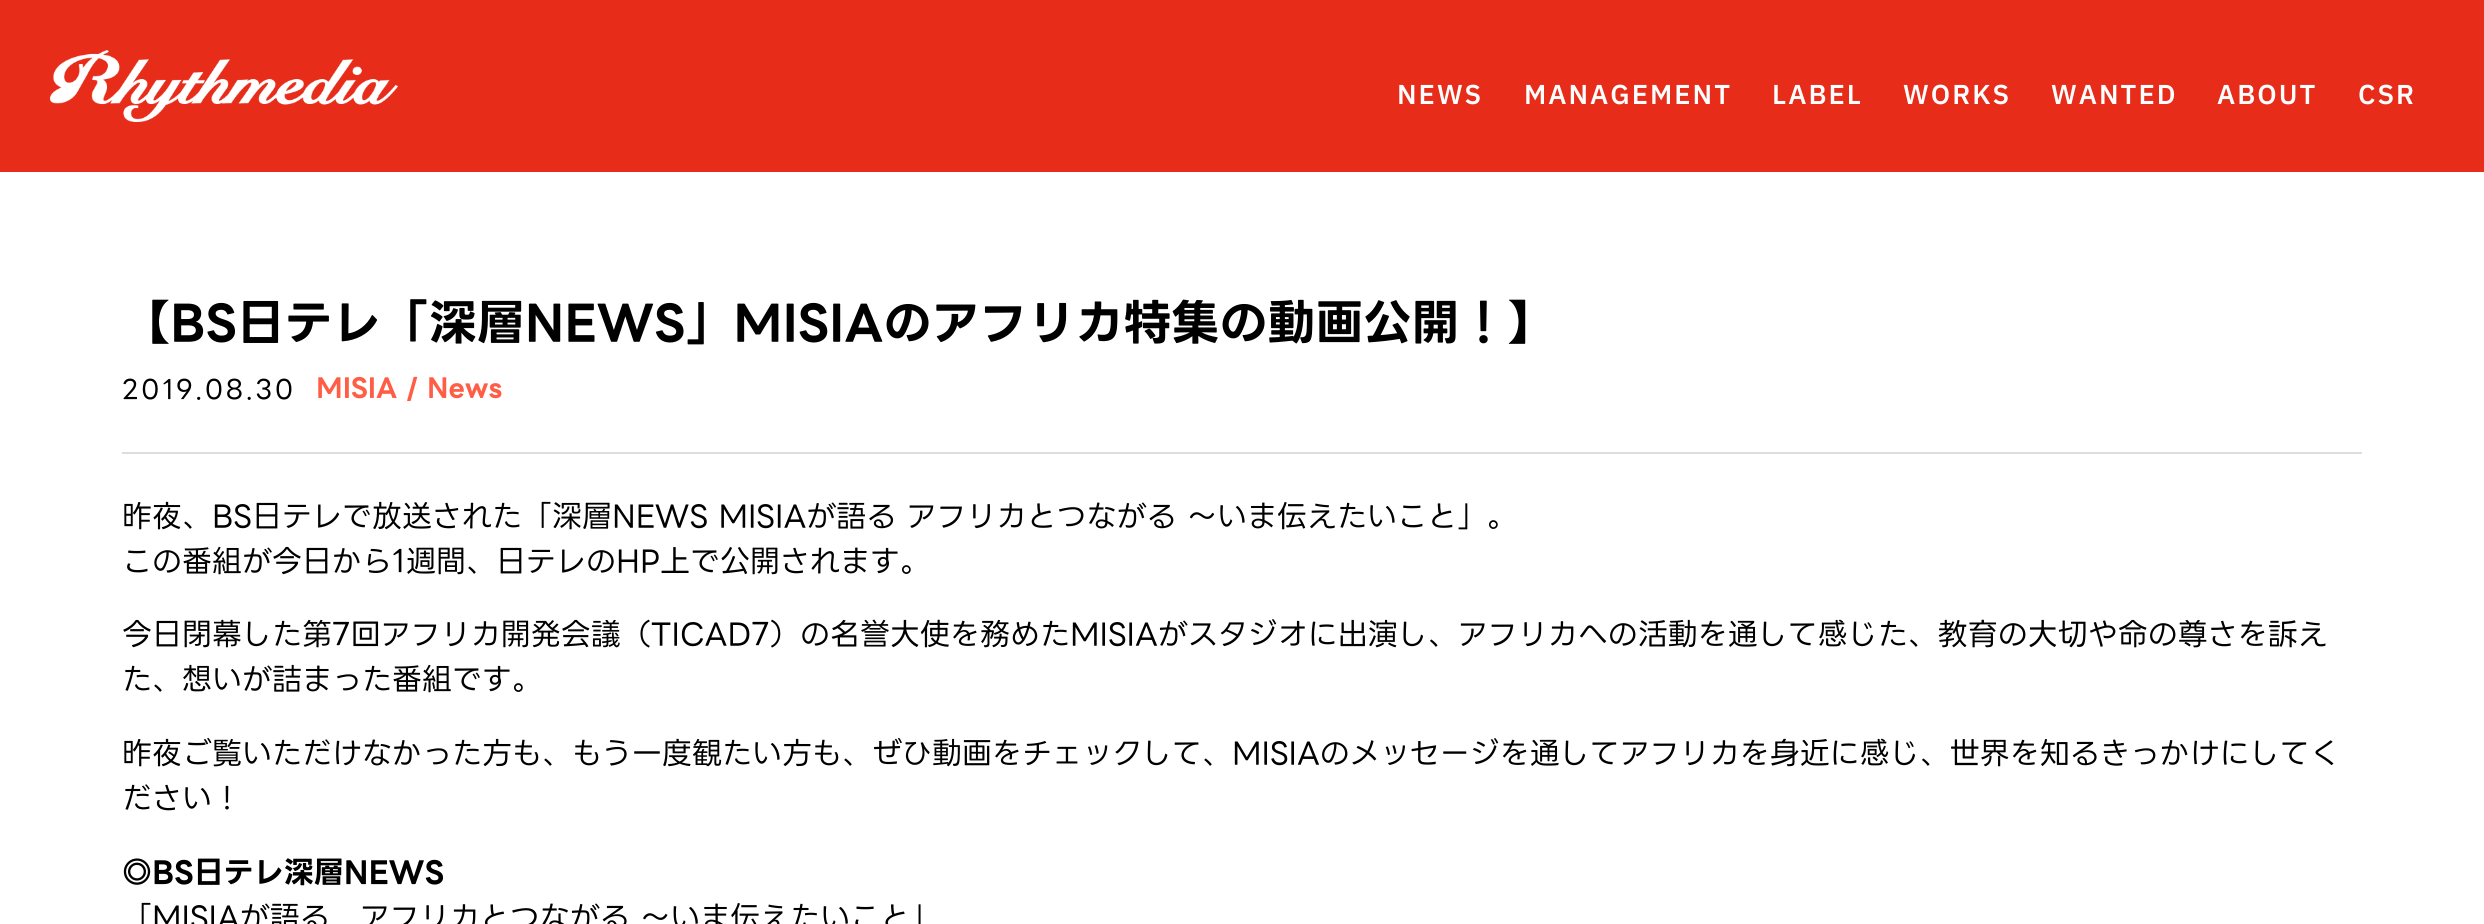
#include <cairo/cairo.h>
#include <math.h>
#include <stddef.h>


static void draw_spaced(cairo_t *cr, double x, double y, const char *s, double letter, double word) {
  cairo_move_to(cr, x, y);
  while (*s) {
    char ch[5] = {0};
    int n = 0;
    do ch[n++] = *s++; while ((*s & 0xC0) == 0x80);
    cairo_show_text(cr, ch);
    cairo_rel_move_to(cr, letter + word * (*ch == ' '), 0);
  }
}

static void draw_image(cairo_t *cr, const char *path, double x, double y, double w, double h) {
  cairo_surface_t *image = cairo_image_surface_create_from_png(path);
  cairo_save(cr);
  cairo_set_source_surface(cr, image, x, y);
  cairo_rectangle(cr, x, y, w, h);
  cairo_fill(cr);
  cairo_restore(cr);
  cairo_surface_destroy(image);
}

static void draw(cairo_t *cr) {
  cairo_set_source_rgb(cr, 1, 1, 1);
  cairo_paint(cr);
  cairo_set_source_rgb(cr, 231 / 255.0, 44 / 255.0, 26 / 255.0);
  cairo_rectangle(cr, 0, 0, 2484, 172);
  cairo_fill(cr);
  draw_image(cr, "images/1.png", 50, 50, 348, 72);
  cairo_set_source_rgb(cr, 221 / 255.0, 221 / 255.0, 221 / 255.0);
  cairo_rectangle(cr, 122, 452, 2240, 2);
  cairo_fill(cr);
  cairo_select_font_face(cr, "IBM Plex Sans JP SemiBold", CAIRO_FONT_SLANT_NORMAL, CAIRO_FONT_WEIGHT_NORMAL);
  cairo_set_font_size(cr, 26);
  cairo_set_source_rgb(cr, 1, 1, 1);
  draw_spaced(cr, 1397, 104, "NEWS", 2, 0);
  draw_spaced(cr, 1524, 104, "MANAGEMENT", 2, 0);
  draw_spaced(cr, 1772, 104, "LABEL", 2, 0);
  draw_spaced(cr, 1903, 104, "WORKS", 2, 0);
  draw_spaced(cr, 2051, 104, "WANTED", 2, 0);
  draw_spaced(cr, 2217, 104, "ABOUT", 2, 0);
  draw_spaced(cr, 2358, 104, "CSR", 2, 0);
  cairo_select_font_face(cr, "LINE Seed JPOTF", CAIRO_FONT_SLANT_NORMAL, CAIRO_FONT_WEIGHT_BOLD);
  cairo_set_font_size(cr, 48);
  cairo_set_source_rgb(cr, 0, 0, 0);
  cairo_move_to(cr, 122, 340);
  cairo_show_text(cr, "【BS日テレ「深層NEWS」MISIAのアフリカ特集の動画公開！】");
  cairo_select_font_face(cr, "LINE Seed JPOTF", CAIRO_FONT_SLANT_NORMAL, CAIRO_FONT_WEIGHT_NORMAL);
  cairo_set_font_size(cr, 26);
  draw_spaced(cr, 122, 399, "2019.08.30", 2, 0);
  cairo_select_font_face(cr, "LINE Seed JPOTF", CAIRO_FONT_SLANT_NORMAL, CAIRO_FONT_WEIGHT_BOLD);
  cairo_set_source_rgb(cr, 1, 93 / 255.0, 69 / 255.0);
  cairo_move_to(cr, 316, 397);
  cairo_show_text(cr, "MISIA / News");
  cairo_select_font_face(cr, "LINE Seed JPOTF", CAIRO_FONT_SLANT_NORMAL, CAIRO_FONT_WEIGHT_NORMAL);
  cairo_set_font_size(cr, 30);
  cairo_set_source_rgb(cr, 0, 0, 0);
  cairo_move_to(cr, 122, 527);
  cairo_show_text(cr, "昨夜、BS日テレで放送された「深層NEWS MISIAが語る アフリカとつながる 〜いま伝えたいこと」。");
  cairo_move_to(cr, 122, 572);
  cairo_show_text(cr, "この番組が今日から1週間、日テレのHP上で公開されます。");
  cairo_move_to(cr, 122, 645);
  cairo_show_text(cr, "今日閉幕した第7回アフリカ開発会議（TICAD7）の名誉大使を務めたMISIAがスタジオに出演し、アフリカへの活動を通して感じた、教育の大切や命の尊さを訴え");
  cairo_move_to(cr, 122, 690);
  cairo_show_text(cr, "た、想いが詰まった番組です。");
  cairo_move_to(cr, 122, 764);
  cairo_show_text(cr, "昨夜ご覧いただけなかった方も、もう一度観たい方も、ぜひ動画をチェックして、MISIAのメッセージを通してアフリカを身近に感じ、世界を知るきっかけにしてく");
  cairo_move_to(cr, 122, 809);
  cairo_show_text(cr, "ださい！");
  cairo_select_font_face(cr, "LINE Seed JPOTF", CAIRO_FONT_SLANT_NORMAL, CAIRO_FONT_WEIGHT_BOLD);
  cairo_move_to(cr, 122, 883);
  cairo_show_text(cr, "◎BS日テレ深層NEWS");
  cairo_select_font_face(cr, "LINE Seed JPOTF", CAIRO_FONT_SLANT_NORMAL, CAIRO_FONT_WEIGHT_NORMAL);
  cairo_move_to(cr, 122, 928);
  cairo_show_text(cr, "「MISIAが語る　アフリカとつながる 〜いま伝えたいこと」");
}

int main(void) {
  cairo_surface_t *surface = cairo_image_surface_create(CAIRO_FORMAT_RGB24, 2484, 924);
  cairo_t *cr = cairo_create(surface);
  cairo_font_options_t *options = cairo_font_options_create();
  cairo_font_options_set_hint_metrics(options, CAIRO_HINT_METRICS_OFF);
  cairo_font_options_set_hint_style(options, CAIRO_HINT_STYLE_NONE);
  cairo_set_font_options(cr, options);
  cairo_set_miter_limit(cr, 4);
  draw(cr);
  cairo_surface_write_to_png(surface, "out.png");
  cairo_font_options_destroy(options);
  cairo_destroy(cr);
  cairo_surface_destroy(surface);
  return 0;
}
